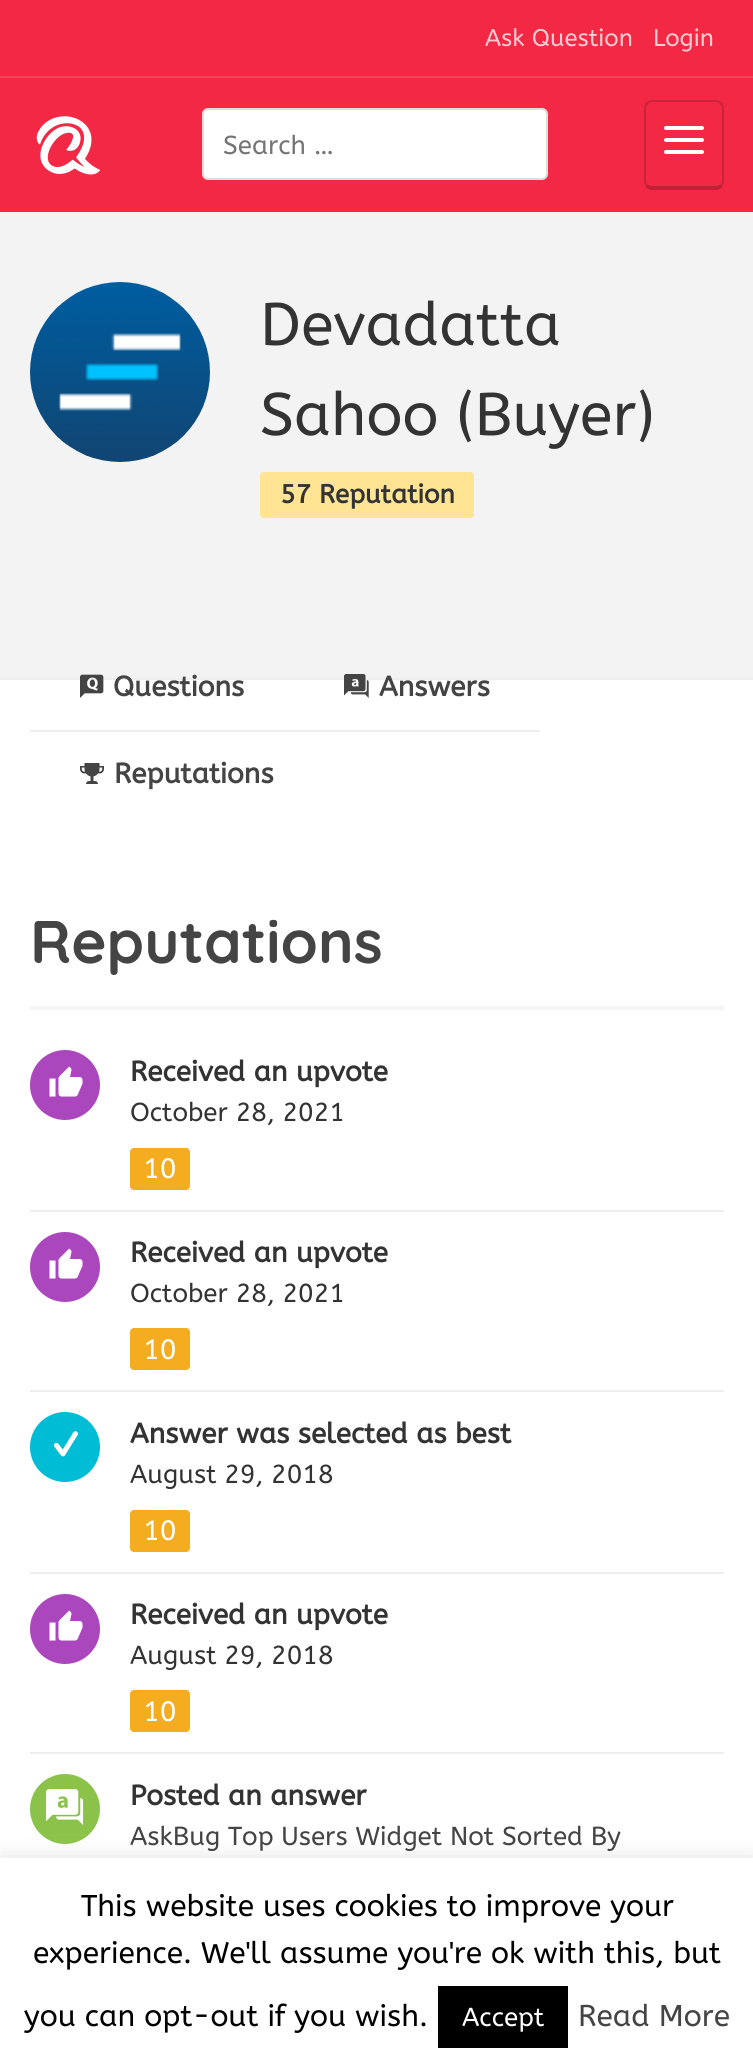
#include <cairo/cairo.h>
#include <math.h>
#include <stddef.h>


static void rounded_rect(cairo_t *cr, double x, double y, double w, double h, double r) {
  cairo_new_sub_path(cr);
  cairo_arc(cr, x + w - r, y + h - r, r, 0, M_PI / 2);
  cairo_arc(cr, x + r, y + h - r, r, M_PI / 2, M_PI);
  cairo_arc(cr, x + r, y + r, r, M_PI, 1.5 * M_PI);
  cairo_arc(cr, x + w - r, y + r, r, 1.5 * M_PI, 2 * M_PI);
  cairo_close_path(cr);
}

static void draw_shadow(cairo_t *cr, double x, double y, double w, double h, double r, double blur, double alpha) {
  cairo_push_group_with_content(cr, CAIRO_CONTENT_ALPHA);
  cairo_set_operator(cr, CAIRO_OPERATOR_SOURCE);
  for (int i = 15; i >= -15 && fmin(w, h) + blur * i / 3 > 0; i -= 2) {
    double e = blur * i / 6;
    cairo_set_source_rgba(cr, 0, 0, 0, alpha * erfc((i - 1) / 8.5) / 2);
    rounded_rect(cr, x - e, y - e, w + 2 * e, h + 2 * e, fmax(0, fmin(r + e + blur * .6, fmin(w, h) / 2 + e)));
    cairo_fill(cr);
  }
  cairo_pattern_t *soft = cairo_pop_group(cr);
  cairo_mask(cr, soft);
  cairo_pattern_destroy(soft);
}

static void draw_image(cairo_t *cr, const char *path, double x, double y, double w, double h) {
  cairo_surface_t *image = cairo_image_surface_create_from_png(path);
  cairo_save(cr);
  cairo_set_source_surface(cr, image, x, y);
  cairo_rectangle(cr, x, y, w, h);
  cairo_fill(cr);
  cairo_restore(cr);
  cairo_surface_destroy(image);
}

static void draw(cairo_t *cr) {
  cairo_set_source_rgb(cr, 1, 1, 1);
  cairo_paint(cr);
  cairo_set_source_rgb(cr, 242 / 255.0, 40 / 255.0, 68 / 255.0);
  cairo_rectangle(cr, 0, 0, 753, 212);
  cairo_fill(cr);
  cairo_set_source_rgb(cr, 244 / 255.0, 66 / 255.0, 90 / 255.0);
  cairo_rectangle(cr, 0, 76, 753, 2);
  cairo_fill(cr);
  draw_image(cr, "images/1.png", 36, 116, 64, 59);
  cairo_set_source_rgb(cr, 1, 1, 1);
  rounded_rect(cr, 203, 109, 344, 70, 5);
  cairo_fill_preserve(cr);
  cairo_set_source_rgb(cr, 221 / 255.0, 221 / 255.0, 221 / 255.0);
  cairo_stroke(cr);
  cairo_set_source_rgba(cr, 0, 0, 0, 0.15);
  cairo_new_path(cr);
  cairo_move_to(cr, 652, 100);
  cairo_curve_to(cr, 650, 100, 648, 101, 646, 102);
  cairo_line_to(cr, 648, 104);
  cairo_curve_to(cr, 649, 103, 650, 102, 652, 102);
  cairo_line_to(cr, 716, 102);
  cairo_curve_to(cr, 718, 102, 719, 103, 720, 104);
  cairo_line_to(cr, 722, 102);
  cairo_curve_to(cr, 720, 101, 718, 100, 716, 100);
  cairo_close_path(cr);
  cairo_fill(cr);
  cairo_new_path(cr);
  cairo_move_to(cr, 724, 182);
  cairo_line_to(cr, 724, 108);
  cairo_curve_to(cr, 724, 106, 723, 104, 722, 102);
  cairo_line_to(cr, 720, 104);
  cairo_line_to(cr, 722, 107);
  cairo_line_to(cr, 722, 182);
  cairo_line_to(cr, 721, 184);
  cairo_line_to(cr, 722, 187);
  cairo_curve_to(cr, 723, 185, 724, 184, 724, 182);
  cairo_close_path(cr);
  cairo_fill(cr);
  cairo_set_source_rgba(cr, 0, 0, 0, 0.2);
  cairo_new_path(cr);
  cairo_move_to(cr, 652, 190);
  cairo_line_to(cr, 716, 190);
  cairo_curve_to(cr, 718, 190, 721, 189, 722, 187);
  cairo_line_to(cr, 721, 184);
  cairo_curve_to(cr, 720, 185, 718, 186, 716, 186);
  cairo_line_to(cr, 652, 186);
  cairo_curve_to(cr, 650, 186, 648, 185, 647, 184);
  cairo_line_to(cr, 646, 187);
  cairo_curve_to(cr, 647, 189, 650, 190, 652, 190);
  cairo_close_path(cr);
  cairo_fill(cr);
  cairo_set_source_rgba(cr, 0, 0, 0, 0.15);
  cairo_new_path(cr);
  cairo_move_to(cr, 644, 108);
  cairo_line_to(cr, 644, 182);
  cairo_curve_to(cr, 644, 184, 645, 185, 646, 187);
  cairo_line_to(cr, 647, 184);
  cairo_line_to(cr, 646, 182);
  cairo_line_to(cr, 646, 107);
  cairo_line_to(cr, 648, 104);
  cairo_line_to(cr, 646, 102);
  cairo_curve_to(cr, 645, 104, 644, 106, 644, 108);
  cairo_close_path(cr);
  cairo_fill(cr);
  draw_image(cr, "images/2.png", 664, 126, 40, 28);
  cairo_set_source_rgb(cr, 243 / 255.0, 243 / 255.0, 243 / 255.0);
  cairo_rectangle(cr, 0, 212, 753, 466);
  cairo_fill(cr);
  cairo_set_source_rgb(cr, 238 / 255.0, 238 / 255.0, 238 / 255.0);
  cairo_rectangle(cr, 0, 678, 753, 2);
  cairo_fill(cr);
  draw_image(cr, "images/3.png", 30, 282, 180, 180);
  cairo_set_source_rgb(cr, 1, 228 / 255.0, 147 / 255.0);
  rounded_rect(cr, 260, 472, 214, 46, 4);
  cairo_fill(cr);
  cairo_set_source_rgb(cr, 238 / 255.0, 238 / 255.0, 238 / 255.0);
  cairo_rectangle(cr, 30, 730, 510, 2);
  cairo_fill(cr);
  draw_image(cr, "images/4.png", 80, 674, 24, 24);
  draw_image(cr, "images/5.png", 344, 674, 25, 24);
  draw_image(cr, "images/6.png", 80, 763, 24, 21);
  cairo_set_source_rgb(cr, 245 / 255.0, 245 / 255.0, 245 / 255.0);
  cairo_rectangle(cr, 30, 1006, 694, 4);
  cairo_fill(cr);
  cairo_set_source_rgb(cr, 238 / 255.0, 238 / 255.0, 238 / 255.0);
  cairo_rectangle(cr, 30, 1210, 694, 2);
  cairo_fill(cr);
  cairo_set_source_rgb(cr, 171 / 255.0, 71 / 255.0, 188 / 255.0);
  cairo_arc(cr, 65, 1085, 35, 0, 2 * M_PI);
  cairo_fill(cr);
  draw_image(cr, "images/7.png", 49, 1066, 34, 31);
  cairo_set_source_rgb(cr, 244 / 255.0, 172 / 255.0, 32 / 255.0);
  rounded_rect(cr, 130, 1148, 60, 42, 4);
  cairo_fill(cr);
  cairo_set_source_rgb(cr, 238 / 255.0, 238 / 255.0, 238 / 255.0);
  cairo_rectangle(cr, 30, 1390, 694, 2);
  cairo_fill(cr);
  cairo_set_source_rgb(cr, 171 / 255.0, 71 / 255.0, 188 / 255.0);
  cairo_arc(cr, 65, 1267, 35, 0, 2 * M_PI);
  cairo_fill(cr);
  draw_image(cr, "images/7.png", 49, 1248, 34, 31);
  cairo_set_source_rgb(cr, 244 / 255.0, 172 / 255.0, 32 / 255.0);
  rounded_rect(cr, 130, 1328, 60, 42, 4);
  cairo_fill(cr);
  cairo_set_source_rgb(cr, 238 / 255.0, 238 / 255.0, 238 / 255.0);
  cairo_rectangle(cr, 30, 1572, 694, 2);
  cairo_fill(cr);
  cairo_set_source_rgb(cr, 0, 188 / 255.0, 212 / 255.0);
  cairo_arc(cr, 65, 1447, 35, 0, 2 * M_PI);
  cairo_fill(cr);
  draw_image(cr, "images/8.png", 54, 1431, 24, 26);
  cairo_set_source_rgb(cr, 244 / 255.0, 172 / 255.0, 32 / 255.0);
  rounded_rect(cr, 130, 1510, 60, 42, 4);
  cairo_fill(cr);
  cairo_set_source_rgb(cr, 238 / 255.0, 238 / 255.0, 238 / 255.0);
  cairo_rectangle(cr, 30, 1752, 694, 2);
  cairo_fill(cr);
  cairo_set_source_rgb(cr, 171 / 255.0, 71 / 255.0, 188 / 255.0);
  cairo_arc(cr, 65, 1629, 35, 0, 2 * M_PI);
  cairo_fill(cr);
  draw_image(cr, "images/7.png", 49, 1610, 34, 31);
  cairo_set_source_rgb(cr, 244 / 255.0, 172 / 255.0, 32 / 255.0);
  rounded_rect(cr, 130, 1690, 60, 42, 4);
  cairo_fill(cr);
  cairo_set_source_rgb(cr, 139 / 255.0, 195 / 255.0, 74 / 255.0);
  cairo_arc(cr, 65, 1809, 35, 0, 2 * M_PI);
  cairo_fill(cr);
  draw_image(cr, "images/9.png", 46, 1789, 38, 36);
  cairo_set_source_rgb(cr, 172 / 255.0, 171 / 255.0, 171 / 255.0);
  draw_shadow(cr, 0, 1856, 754, 214, 0, 10, 0.3);
  cairo_set_source_rgb(cr, 1, 1, 1);
  cairo_rectangle(cr, 0, 1858, 753, 213);
  cairo_fill(cr);
  cairo_set_source_rgb(cr, 0, 0, 0);
  cairo_rectangle(cr, 438, 1986, 130, 62);
  cairo_fill(cr);
  cairo_select_font_face(cr, "ABeeZee", CAIRO_FONT_SLANT_NORMAL, CAIRO_FONT_WEIGHT_NORMAL);
  cairo_set_font_size(cr, 24);
  cairo_set_source_rgb(cr, 252 / 255.0, 203 / 255.0, 210 / 255.0);
  cairo_move_to(cr, 485, 46);
  cairo_show_text(cr, "Ask Question");
  cairo_move_to(cr, 653, 46);
  cairo_show_text(cr, "Login");
  cairo_set_font_size(cr, 26);
  cairo_set_source_rgb(cr, 117 / 255.0, 117 / 255.0, 117 / 255.0);
  cairo_move_to(cr, 223, 154);
  cairo_show_text(cr, "Search …");
  cairo_set_font_size(cr, 60);
  cairo_set_source_rgb(cr, 51 / 255.0, 51 / 255.0, 51 / 255.0);
  cairo_move_to(cr, 260, 345);
  cairo_show_text(cr, "Devadatta");
  cairo_move_to(cr, 260, 435);
  cairo_show_text(cr, "Sahoo (Buyer)");
  cairo_select_font_face(cr, "ABeeZee", CAIRO_FONT_SLANT_NORMAL, CAIRO_FONT_WEIGHT_BOLD);
  cairo_set_font_size(cr, 26);
  cairo_move_to(cr, 280, 503);
  cairo_show_text(cr, "57 Reputation");
  cairo_set_font_size(cr, 28);
  cairo_set_source_rgb(cr, 68 / 255.0, 68 / 255.0, 68 / 255.0);
  cairo_move_to(cr, 113, 696);
  cairo_show_text(cr, "Questions");
  cairo_move_to(cr, 379, 696);
  cairo_show_text(cr, "Answers");
  cairo_move_to(cr, 114, 783);
  cairo_show_text(cr, "Reputations");
  cairo_select_font_face(cr, "Quicksand", CAIRO_FONT_SLANT_NORMAL, CAIRO_FONT_WEIGHT_BOLD);
  cairo_set_font_size(cr, 60);
  cairo_move_to(cr, 30, 963);
  cairo_show_text(cr, "Reputations");
  cairo_select_font_face(cr, "ABeeZee", CAIRO_FONT_SLANT_NORMAL, CAIRO_FONT_WEIGHT_BOLD);
  cairo_set_font_size(cr, 28);
  cairo_set_source_rgb(cr, 51 / 255.0, 51 / 255.0, 51 / 255.0);
  cairo_move_to(cr, 130, 1081);
  cairo_show_text(cr, "Received an upvote");
  cairo_select_font_face(cr, "ABeeZee", CAIRO_FONT_SLANT_NORMAL, CAIRO_FONT_WEIGHT_NORMAL);
  cairo_set_font_size(cr, 26);
  cairo_move_to(cr, 130, 1121);
  cairo_show_text(cr, "October 28, 2021");
  cairo_set_font_size(cr, 28);
  cairo_set_source_rgb(cr, 1, 1, 1);
  cairo_move_to(cr, 143, 1178);
  cairo_show_text(cr, "10");
  cairo_select_font_face(cr, "ABeeZee", CAIRO_FONT_SLANT_NORMAL, CAIRO_FONT_WEIGHT_BOLD);
  cairo_set_source_rgb(cr, 51 / 255.0, 51 / 255.0, 51 / 255.0);
  cairo_move_to(cr, 130, 1262);
  cairo_show_text(cr, "Received an upvote");
  cairo_select_font_face(cr, "ABeeZee", CAIRO_FONT_SLANT_NORMAL, CAIRO_FONT_WEIGHT_NORMAL);
  cairo_set_font_size(cr, 26);
  cairo_move_to(cr, 130, 1302);
  cairo_show_text(cr, "October 28, 2021");
  cairo_set_font_size(cr, 28);
  cairo_set_source_rgb(cr, 1, 1, 1);
  cairo_move_to(cr, 143, 1359);
  cairo_show_text(cr, "10");
  cairo_select_font_face(cr, "ABeeZee", CAIRO_FONT_SLANT_NORMAL, CAIRO_FONT_WEIGHT_BOLD);
  cairo_set_source_rgb(cr, 51 / 255.0, 51 / 255.0, 51 / 255.0);
  cairo_move_to(cr, 130, 1443);
  cairo_show_text(cr, "Answer was selected as best");
  cairo_select_font_face(cr, "ABeeZee", CAIRO_FONT_SLANT_NORMAL, CAIRO_FONT_WEIGHT_NORMAL);
  cairo_set_font_size(cr, 26);
  cairo_move_to(cr, 130, 1483);
  cairo_show_text(cr, "August 29, 2018");
  cairo_set_font_size(cr, 28);
  cairo_set_source_rgb(cr, 1, 1, 1);
  cairo_move_to(cr, 143, 1540);
  cairo_show_text(cr, "10");
  cairo_select_font_face(cr, "ABeeZee", CAIRO_FONT_SLANT_NORMAL, CAIRO_FONT_WEIGHT_BOLD);
  cairo_set_source_rgb(cr, 51 / 255.0, 51 / 255.0, 51 / 255.0);
  cairo_move_to(cr, 130, 1624);
  cairo_show_text(cr, "Received an upvote");
  cairo_select_font_face(cr, "ABeeZee", CAIRO_FONT_SLANT_NORMAL, CAIRO_FONT_WEIGHT_NORMAL);
  cairo_set_font_size(cr, 26);
  cairo_move_to(cr, 130, 1664);
  cairo_show_text(cr, "August 29, 2018");
  cairo_set_font_size(cr, 28);
  cairo_set_source_rgb(cr, 1, 1, 1);
  cairo_move_to(cr, 143, 1721);
  cairo_show_text(cr, "10");
  cairo_select_font_face(cr, "ABeeZee", CAIRO_FONT_SLANT_NORMAL, CAIRO_FONT_WEIGHT_BOLD);
  cairo_set_source_rgb(cr, 51 / 255.0, 51 / 255.0, 51 / 255.0);
  cairo_move_to(cr, 130, 1805);
  cairo_show_text(cr, "Posted an answer");
  cairo_select_font_face(cr, "ABeeZee", CAIRO_FONT_SLANT_NORMAL, CAIRO_FONT_WEIGHT_NORMAL);
  cairo_set_font_size(cr, 26);
  cairo_set_source_rgb(cr, 68 / 255.0, 68 / 255.0, 68 / 255.0);
  cairo_move_to(cr, 130, 1845);
  cairo_show_text(cr, "AskBug Top Users Widget Not Sorted By");
  cairo_set_font_size(cr, 30);
  cairo_set_source_rgb(cr, 0, 0, 0);
  cairo_move_to(cr, 81, 1916);
  cairo_show_text(cr, "This website uses cookies to improve your");
  cairo_move_to(cr, 33, 1963);
  cairo_show_text(cr, "experience. We'll assume you're ok with this, but");
  cairo_move_to(cr, 24, 2026);
  cairo_show_text(cr, "you can opt-out if you wish.");
  cairo_set_font_size(cr, 26);
  cairo_set_source_rgb(cr, 1, 1, 1);
  cairo_move_to(cr, 462, 2026);
  cairo_show_text(cr, "Accept");
  cairo_set_font_size(cr, 30);
  cairo_set_source_rgb(cr, 68 / 255.0, 68 / 255.0, 68 / 255.0);
  cairo_move_to(cr, 578, 2026);
  cairo_show_text(cr, "Read More");
}

int main(void) {
  cairo_surface_t *surface = cairo_image_surface_create(CAIRO_FORMAT_RGB24, 753, 2071);
  cairo_t *cr = cairo_create(surface);
  cairo_font_options_t *options = cairo_font_options_create();
  cairo_font_options_set_hint_metrics(options, CAIRO_HINT_METRICS_OFF);
  cairo_font_options_set_hint_style(options, CAIRO_HINT_STYLE_NONE);
  cairo_set_font_options(cr, options);
  cairo_set_miter_limit(cr, 4);
  draw(cr);
  cairo_surface_write_to_png(surface, "out.png");
  cairo_font_options_destroy(options);
  cairo_destroy(cr);
  cairo_surface_destroy(surface);
  return 0;
}
